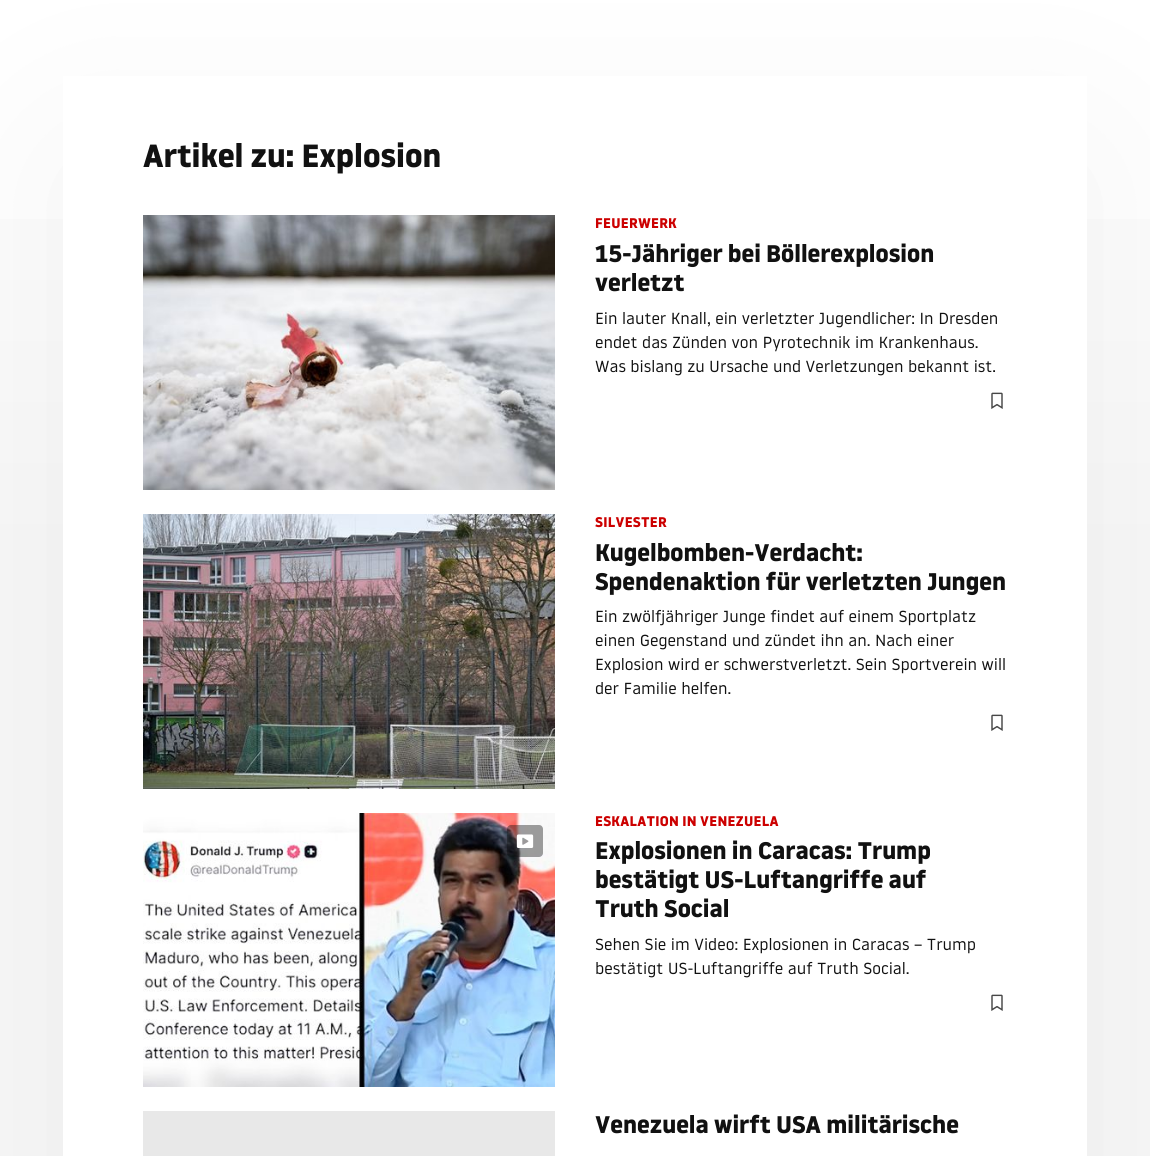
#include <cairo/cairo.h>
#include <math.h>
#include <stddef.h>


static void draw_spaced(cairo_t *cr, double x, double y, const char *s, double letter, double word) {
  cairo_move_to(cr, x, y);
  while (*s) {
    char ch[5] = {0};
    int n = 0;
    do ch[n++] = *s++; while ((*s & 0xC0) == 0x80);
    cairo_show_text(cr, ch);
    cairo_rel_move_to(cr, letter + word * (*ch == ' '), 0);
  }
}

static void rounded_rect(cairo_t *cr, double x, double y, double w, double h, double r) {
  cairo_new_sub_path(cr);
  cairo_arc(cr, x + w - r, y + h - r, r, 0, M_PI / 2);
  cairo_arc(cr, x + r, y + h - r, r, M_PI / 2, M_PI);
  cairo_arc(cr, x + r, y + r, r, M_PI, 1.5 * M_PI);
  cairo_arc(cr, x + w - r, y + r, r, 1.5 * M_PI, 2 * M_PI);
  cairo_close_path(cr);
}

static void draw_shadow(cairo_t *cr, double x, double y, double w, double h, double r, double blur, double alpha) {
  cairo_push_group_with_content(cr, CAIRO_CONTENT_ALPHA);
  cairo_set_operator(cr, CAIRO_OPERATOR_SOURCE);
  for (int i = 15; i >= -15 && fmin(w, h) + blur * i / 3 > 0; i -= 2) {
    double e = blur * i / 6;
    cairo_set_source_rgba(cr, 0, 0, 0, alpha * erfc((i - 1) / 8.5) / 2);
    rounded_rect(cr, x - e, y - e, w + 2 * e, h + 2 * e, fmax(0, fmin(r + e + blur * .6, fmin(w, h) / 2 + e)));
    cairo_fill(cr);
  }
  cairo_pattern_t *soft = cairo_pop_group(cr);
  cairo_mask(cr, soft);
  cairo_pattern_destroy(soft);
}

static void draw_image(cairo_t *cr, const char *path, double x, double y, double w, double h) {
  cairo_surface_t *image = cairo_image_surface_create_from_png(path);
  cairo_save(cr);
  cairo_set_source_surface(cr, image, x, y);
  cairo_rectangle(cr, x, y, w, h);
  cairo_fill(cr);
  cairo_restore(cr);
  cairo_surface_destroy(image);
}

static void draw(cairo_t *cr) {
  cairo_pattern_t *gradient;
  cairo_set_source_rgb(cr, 1, 1, 1);
  cairo_paint(cr);
  gradient = cairo_pattern_create_linear(575, -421, 575, 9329);
  cairo_pattern_add_color_stop_rgba(gradient, 0, 1, 1, 1, 1);
  cairo_pattern_add_color_stop_rgba(gradient, 0.05, 1, 1, 1, 1);
  cairo_pattern_add_color_stop_rgba(gradient, 0.1, 247 / 255.0, 247 / 255.0, 247 / 255.0, 1);
  cairo_pattern_add_color_stop_rgba(gradient, 1, 247 / 255.0, 247 / 255.0, 247 / 255.0, 1);
  cairo_set_source(cr, gradient);
  cairo_pattern_destroy(gradient);
  cairo_rectangle(cr, 0, 219, 1150, 937);
  cairo_fill(cr);
  cairo_save(cr);
  cairo_rectangle(cr, 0, 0, 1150, 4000);
  cairo_clip(cr);
  cairo_set_source_rgb(cr, 17 / 255.0, 17 / 255.0, 17 / 255.0);
  draw_shadow(cr, 63, 153, 1024, 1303, 0, 100, 0.05);
  cairo_restore(cr);
  cairo_set_source_rgb(cr, 1, 1, 1);
  cairo_rectangle(cr, 63, 76, 1024, 1080);
  cairo_fill(cr);
  draw_image(cr, "images/1.png", 143, 215, 412, 275);
  draw_image(cr, "images/2.png", 991, 392, 12, 17);
  draw_image(cr, "images/3.png", 143, 514, 412, 275);
  draw_image(cr, "images/2.png", 991, 714, 12, 17);
  draw_image(cr, "images/4.png", 143, 813, 412, 274);
  cairo_set_source_rgba(cr, 17 / 255.0, 17 / 255.0, 17 / 255.0, 0.4);
  rounded_rect(cr, 507, 825, 36, 32, 4);
  cairo_fill(cr);
  draw_image(cr, "images/5.png", 516, 834, 18, 14);
  draw_image(cr, "images/2.png", 991, 994, 12, 17);
  cairo_set_source_rgb(cr, 232 / 255.0, 232 / 255.0, 232 / 255.0);
  cairo_rectangle(cr, 143, 1111, 412, 45);
  cairo_fill(cr);
  cairo_select_font_face(cr, "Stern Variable", CAIRO_FONT_SLANT_NORMAL, CAIRO_FONT_WEIGHT_BOLD);
  cairo_set_font_size(cr, 32);
  cairo_set_source_rgb(cr, 17 / 255.0, 17 / 255.0, 17 / 255.0);
  cairo_move_to(cr, 143, 167);
  cairo_show_text(cr, "Artikel zu: Explosion");
  cairo_set_font_size(cr, 14);
  cairo_set_source_rgb(cr, 204 / 255.0, 0, 0);
  draw_spaced(cr, 595, 228, "FEUERWERK", 0.25, 0);
  cairo_set_font_size(cr, 24);
  cairo_set_source_rgb(cr, 17 / 255.0, 17 / 255.0, 17 / 255.0);
  cairo_move_to(cr, 595, 262);
  cairo_show_text(cr, "15-Jähriger bei Böllerexplosion");
  cairo_move_to(cr, 595, 291);
  cairo_show_text(cr, "verletzt");
  cairo_select_font_face(cr, "Stern Variable", CAIRO_FONT_SLANT_NORMAL, CAIRO_FONT_WEIGHT_NORMAL);
  cairo_set_font_size(cr, 16);
  cairo_move_to(cr, 595, 324);
  cairo_show_text(cr, "Ein lauter Knall, ein verletzter Jugendlicher: In Dresden");
  cairo_move_to(cr, 595, 348);
  cairo_show_text(cr, "endet das Zünden von Pyrotechnik im Krankenhaus.");
  cairo_move_to(cr, 595, 372);
  cairo_show_text(cr, "Was bislang zu Ursache und Verletzungen bekannt ist.");
  cairo_select_font_face(cr, "Stern Variable", CAIRO_FONT_SLANT_NORMAL, CAIRO_FONT_WEIGHT_BOLD);
  cairo_set_font_size(cr, 14);
  cairo_set_source_rgb(cr, 204 / 255.0, 0, 0);
  draw_spaced(cr, 595, 527, "SILVESTER", 0.25, 0);
  cairo_set_font_size(cr, 24);
  cairo_set_source_rgb(cr, 17 / 255.0, 17 / 255.0, 17 / 255.0);
  cairo_move_to(cr, 595, 561);
  cairo_show_text(cr, "Kugelbomben-Verdacht:");
  cairo_move_to(cr, 595, 590);
  cairo_show_text(cr, "Spendenaktion für verletzten Jungen");
  cairo_select_font_face(cr, "Stern Variable", CAIRO_FONT_SLANT_NORMAL, CAIRO_FONT_WEIGHT_NORMAL);
  cairo_set_font_size(cr, 16);
  cairo_move_to(cr, 595, 622);
  cairo_show_text(cr, "Ein zwölfjähriger Junge findet auf einem Sportplatz");
  cairo_move_to(cr, 595, 646);
  cairo_show_text(cr, "einen Gegenstand und zündet ihn an. Nach einer");
  cairo_move_to(cr, 595, 670);
  cairo_show_text(cr, "Explosion wird er schwerstverletzt. Sein Sportverein will");
  cairo_move_to(cr, 595, 694);
  cairo_show_text(cr, "der Familie helfen.");
  cairo_select_font_face(cr, "Stern Variable", CAIRO_FONT_SLANT_NORMAL, CAIRO_FONT_WEIGHT_BOLD);
  cairo_set_font_size(cr, 14);
  cairo_set_source_rgb(cr, 204 / 255.0, 0, 0);
  draw_spaced(cr, 595, 826, "ESKALATION IN VENEZUELA", 0.25, 0);
  cairo_set_font_size(cr, 24);
  cairo_set_source_rgb(cr, 17 / 255.0, 17 / 255.0, 17 / 255.0);
  cairo_move_to(cr, 595, 859);
  cairo_show_text(cr, "Explosionen in Caracas: Trump");
  cairo_move_to(cr, 595, 888);
  cairo_show_text(cr, "bestätigt US-Luftangriffe auf");
  cairo_move_to(cr, 595, 917);
  cairo_show_text(cr, "Truth Social");
  cairo_select_font_face(cr, "Stern Variable", CAIRO_FONT_SLANT_NORMAL, CAIRO_FONT_WEIGHT_NORMAL);
  cairo_set_font_size(cr, 16);
  cairo_move_to(cr, 595, 950);
  cairo_show_text(cr, "Sehen Sie im Video: Explosionen in Caracas – Trump");
  cairo_move_to(cr, 595, 974);
  cairo_show_text(cr, "bestätigt US-Luftangriffe auf Truth Social.");
  cairo_select_font_face(cr, "Stern Variable", CAIRO_FONT_SLANT_NORMAL, CAIRO_FONT_WEIGHT_BOLD);
  cairo_set_font_size(cr, 24);
  cairo_move_to(cr, 595, 1133);
  cairo_show_text(cr, "Venezuela wirft USA militärische");
}

int main(void) {
  cairo_surface_t *surface = cairo_image_surface_create(CAIRO_FORMAT_RGB24, 1165, 1156);
  cairo_t *cr = cairo_create(surface);
  cairo_font_options_t *options = cairo_font_options_create();
  cairo_font_options_set_hint_metrics(options, CAIRO_HINT_METRICS_OFF);
  cairo_font_options_set_hint_style(options, CAIRO_HINT_STYLE_NONE);
  cairo_set_font_options(cr, options);
  cairo_set_miter_limit(cr, 4);
  draw(cr);
  cairo_surface_write_to_png(surface, "out.png");
  cairo_font_options_destroy(options);
  cairo_destroy(cr);
  cairo_surface_destroy(surface);
  return 0;
}
